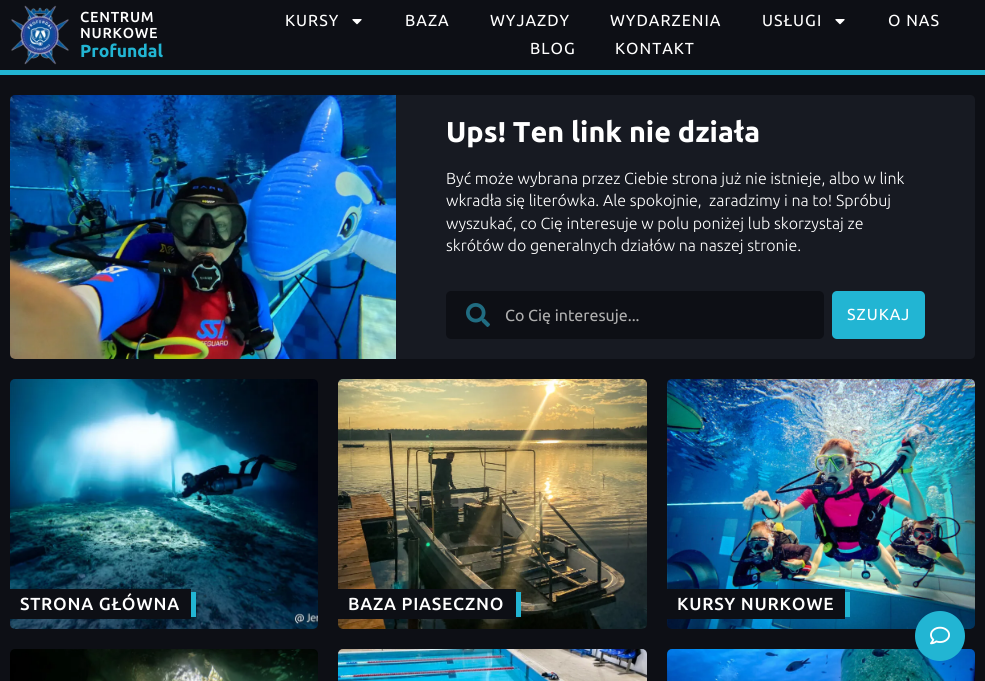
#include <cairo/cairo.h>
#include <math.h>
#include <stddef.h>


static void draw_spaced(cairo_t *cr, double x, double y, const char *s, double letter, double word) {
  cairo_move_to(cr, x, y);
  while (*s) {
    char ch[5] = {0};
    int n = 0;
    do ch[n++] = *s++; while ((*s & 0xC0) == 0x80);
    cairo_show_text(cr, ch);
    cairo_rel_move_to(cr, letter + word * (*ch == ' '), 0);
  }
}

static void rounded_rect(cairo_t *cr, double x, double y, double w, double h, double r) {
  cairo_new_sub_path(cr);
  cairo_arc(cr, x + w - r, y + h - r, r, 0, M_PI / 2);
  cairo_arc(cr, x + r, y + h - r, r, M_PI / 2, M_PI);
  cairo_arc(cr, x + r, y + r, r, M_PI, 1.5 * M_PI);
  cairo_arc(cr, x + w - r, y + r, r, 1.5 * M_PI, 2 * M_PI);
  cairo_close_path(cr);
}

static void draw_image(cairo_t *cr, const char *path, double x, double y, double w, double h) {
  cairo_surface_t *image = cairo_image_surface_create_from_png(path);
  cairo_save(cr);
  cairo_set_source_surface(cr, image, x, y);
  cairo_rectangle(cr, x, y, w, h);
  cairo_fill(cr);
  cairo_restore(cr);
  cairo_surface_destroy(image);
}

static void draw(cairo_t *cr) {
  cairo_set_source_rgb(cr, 13 / 255.0, 15 / 255.0, 21 / 255.0);
  cairo_paint(cr);
  cairo_set_source_rgb(cr, 34 / 255.0, 181 / 255.0, 211 / 255.0);
  cairo_rectangle(cr, 0, 70, 985, 5);
  cairo_fill(cr);
  draw_image(cr, "images/1.png", 11, 5, 58, 60);
  draw_image(cr, "images/8.png", 667, 379, 308, 250);
  draw_image(cr, "images/11.png", 667, 649, 308, 32);
  cairo_arc(cr, 940, 636, 25, 0, 2 * M_PI);
  cairo_fill(cr);
  draw_image(cr, "images/2.png", 930, 626, 20, 19);
  draw_image(cr, "images/3.png", 352, 19, 10, 6);
  draw_image(cr, "images/3.png", 835, 19, 10, 6);
  draw_image(cr, "images/4.png", 10, 95, 386, 264);
  cairo_set_source_rgb(cr, 23 / 255.0, 26 / 255.0, 34 / 255.0);
  cairo_new_path(cr);
  cairo_move_to(cr, 396, 95);
  cairo_line_to(cr, 970, 95);
  cairo_curve_to(cr, 973, 95, 975, 97, 975, 100);
  cairo_line_to(cr, 975, 354);
  cairo_curve_to(cr, 975, 357, 973, 359, 970, 359);
  cairo_line_to(cr, 396, 359);
  cairo_close_path(cr);
  cairo_fill(cr);
  cairo_set_source_rgb(cr, 13 / 255.0, 15 / 255.0, 21 / 255.0);
  rounded_rect(cr, 446, 291, 378, 48, 5);
  cairo_fill(cr);
  draw_image(cr, "images/5.png", 466, 303, 24, 24);
  cairo_set_source_rgb(cr, 34 / 255.0, 181 / 255.0, 211 / 255.0);
  rounded_rect(cr, 832, 291, 93, 48, 5);
  cairo_fill(cr);
  draw_image(cr, "images/6.png", 10, 379, 308, 250);
  cairo_set_source_rgb(cr, 13 / 255.0, 15 / 255.0, 21 / 255.0);
  cairo_rectangle(cr, 10, 589, 181, 30);
  cairo_fill(cr);
  cairo_set_source_rgb(cr, 34 / 255.0, 181 / 255.0, 211 / 255.0);
  cairo_rectangle(cr, 191, 592, 5, 25);
  cairo_fill(cr);
  draw_image(cr, "images/7.png", 338, 379, 309, 250);
  cairo_set_source_rgb(cr, 13 / 255.0, 15 / 255.0, 21 / 255.0);
  cairo_rectangle(cr, 338, 589, 178, 30);
  cairo_fill(cr);
  cairo_set_source_rgb(cr, 34 / 255.0, 181 / 255.0, 211 / 255.0);
  cairo_rectangle(cr, 516, 592, 5, 25);
  cairo_fill(cr);
  cairo_set_source_rgb(cr, 13 / 255.0, 15 / 255.0, 21 / 255.0);
  cairo_rectangle(cr, 667, 589, 178, 30);
  cairo_fill(cr);
  cairo_set_source_rgb(cr, 34 / 255.0, 181 / 255.0, 211 / 255.0);
  cairo_rectangle(cr, 845, 592, 5, 25);
  cairo_fill(cr);
  draw_image(cr, "images/9.png", 10, 649, 308, 32);
  draw_image(cr, "images/10.png", 338, 649, 309, 32);
  cairo_select_font_face(cr, "Ubuntu Medium", CAIRO_FONT_SLANT_NORMAL, CAIRO_FONT_WEIGHT_NORMAL);
  cairo_set_font_size(cr, 14.5);
  cairo_set_source_rgb(cr, 1, 1, 1);
  draw_spaced(cr, 80, 22, "CENTRUM", 0.75, 0);
  draw_spaced(cr, 80, 38, "NURKOWE", 0.75, 0);
  cairo_select_font_face(cr, "Ubuntu", CAIRO_FONT_SLANT_NORMAL, CAIRO_FONT_WEIGHT_BOLD);
  cairo_set_font_size(cr, 17.5);
  cairo_set_source_rgb(cr, 34 / 255.0, 181 / 255.0, 211 / 255.0);
  cairo_move_to(cr, 80, 57);
  cairo_show_text(cr, "Profundal");
  cairo_select_font_face(cr, "Ubuntu", CAIRO_FONT_SLANT_NORMAL, CAIRO_FONT_WEIGHT_NORMAL);
  cairo_set_font_size(cr, 16);
  cairo_set_source_rgb(cr, 1, 1, 1);
  draw_spaced(cr, 285, 26, "KURSY", 1, 0);
  draw_spaced(cr, 405, 26, "BAZA", 1, 0);
  draw_spaced(cr, 490, 26, "WYJAZDY", 1, 0);
  draw_spaced(cr, 610, 26, "WYDARZENIA", 1, 0);
  draw_spaced(cr, 762, 26, "USŁUGI", 1, 0);
  draw_spaced(cr, 888, 26, "O NAS", 1, 0);
  draw_spaced(cr, 530, 54, "BLOG", 1, 0);
  draw_spaced(cr, 615, 54, "KONTAKT", 1, 0);
  cairo_select_font_face(cr, "Ubuntu", CAIRO_FONT_SLANT_NORMAL, CAIRO_FONT_WEIGHT_BOLD);
  cairo_set_font_size(cr, 28.75);
  cairo_move_to(cr, 446, 142);
  cairo_show_text(cr, "Ups! Ten link nie działa");
  cairo_select_font_face(cr, "Ubuntu Light", CAIRO_FONT_SLANT_NORMAL, CAIRO_FONT_WEIGHT_NORMAL);
  cairo_set_font_size(cr, 16);
  cairo_move_to(cr, 446, 184);
  cairo_show_text(cr, "Być może wybrana przez Ciebie strona już nie istnieje, albo w link");
  cairo_move_to(cr, 446, 206);
  cairo_show_text(cr, "wkradła się literówka. Ale spokojnie,  zaradzimy i na to! Spróbuj");
  cairo_move_to(cr, 446, 229);
  cairo_show_text(cr, "wyszukać, co Cię interesuje w polu poniżej lub skorzystaj ze");
  cairo_move_to(cr, 446, 251);
  cairo_show_text(cr, "skrótów do generalnych działów na naszej stronie.");
  cairo_select_font_face(cr, "Ubuntu", CAIRO_FONT_SLANT_NORMAL, CAIRO_FONT_WEIGHT_NORMAL);
  cairo_set_source_rgb(cr, 175 / 255.0, 175 / 255.0, 175 / 255.0);
  cairo_move_to(cr, 505, 321);
  cairo_show_text(cr, "Co Cię interesuje...");
  cairo_set_source_rgb(cr, 1, 1, 1);
  draw_spaced(cr, 847, 320, "SZUKAJ", 1, 0);
  cairo_select_font_face(cr, "Ubuntu Medium", CAIRO_FONT_SLANT_NORMAL, CAIRO_FONT_WEIGHT_NORMAL);
  cairo_set_font_size(cr, 17.5);
  draw_spaced(cr, 20, 610, "STRONA GŁÓWNA", 0.75, 0);
  draw_spaced(cr, 348, 610, "BAZA PIASECZNO", 0.75, 0);
  draw_spaced(cr, 677, 610, "KURSY NURKOWE", 0.75, 0);
}

int main(void) {
  cairo_surface_t *surface = cairo_image_surface_create(CAIRO_FORMAT_RGB24, 985, 681);
  cairo_t *cr = cairo_create(surface);
  cairo_font_options_t *options = cairo_font_options_create();
  cairo_font_options_set_hint_metrics(options, CAIRO_HINT_METRICS_OFF);
  cairo_font_options_set_hint_style(options, CAIRO_HINT_STYLE_NONE);
  cairo_set_font_options(cr, options);
  cairo_set_miter_limit(cr, 4);
  draw(cr);
  cairo_surface_write_to_png(surface, "out.png");
  cairo_font_options_destroy(options);
  cairo_destroy(cr);
  cairo_surface_destroy(surface);
  return 0;
}
